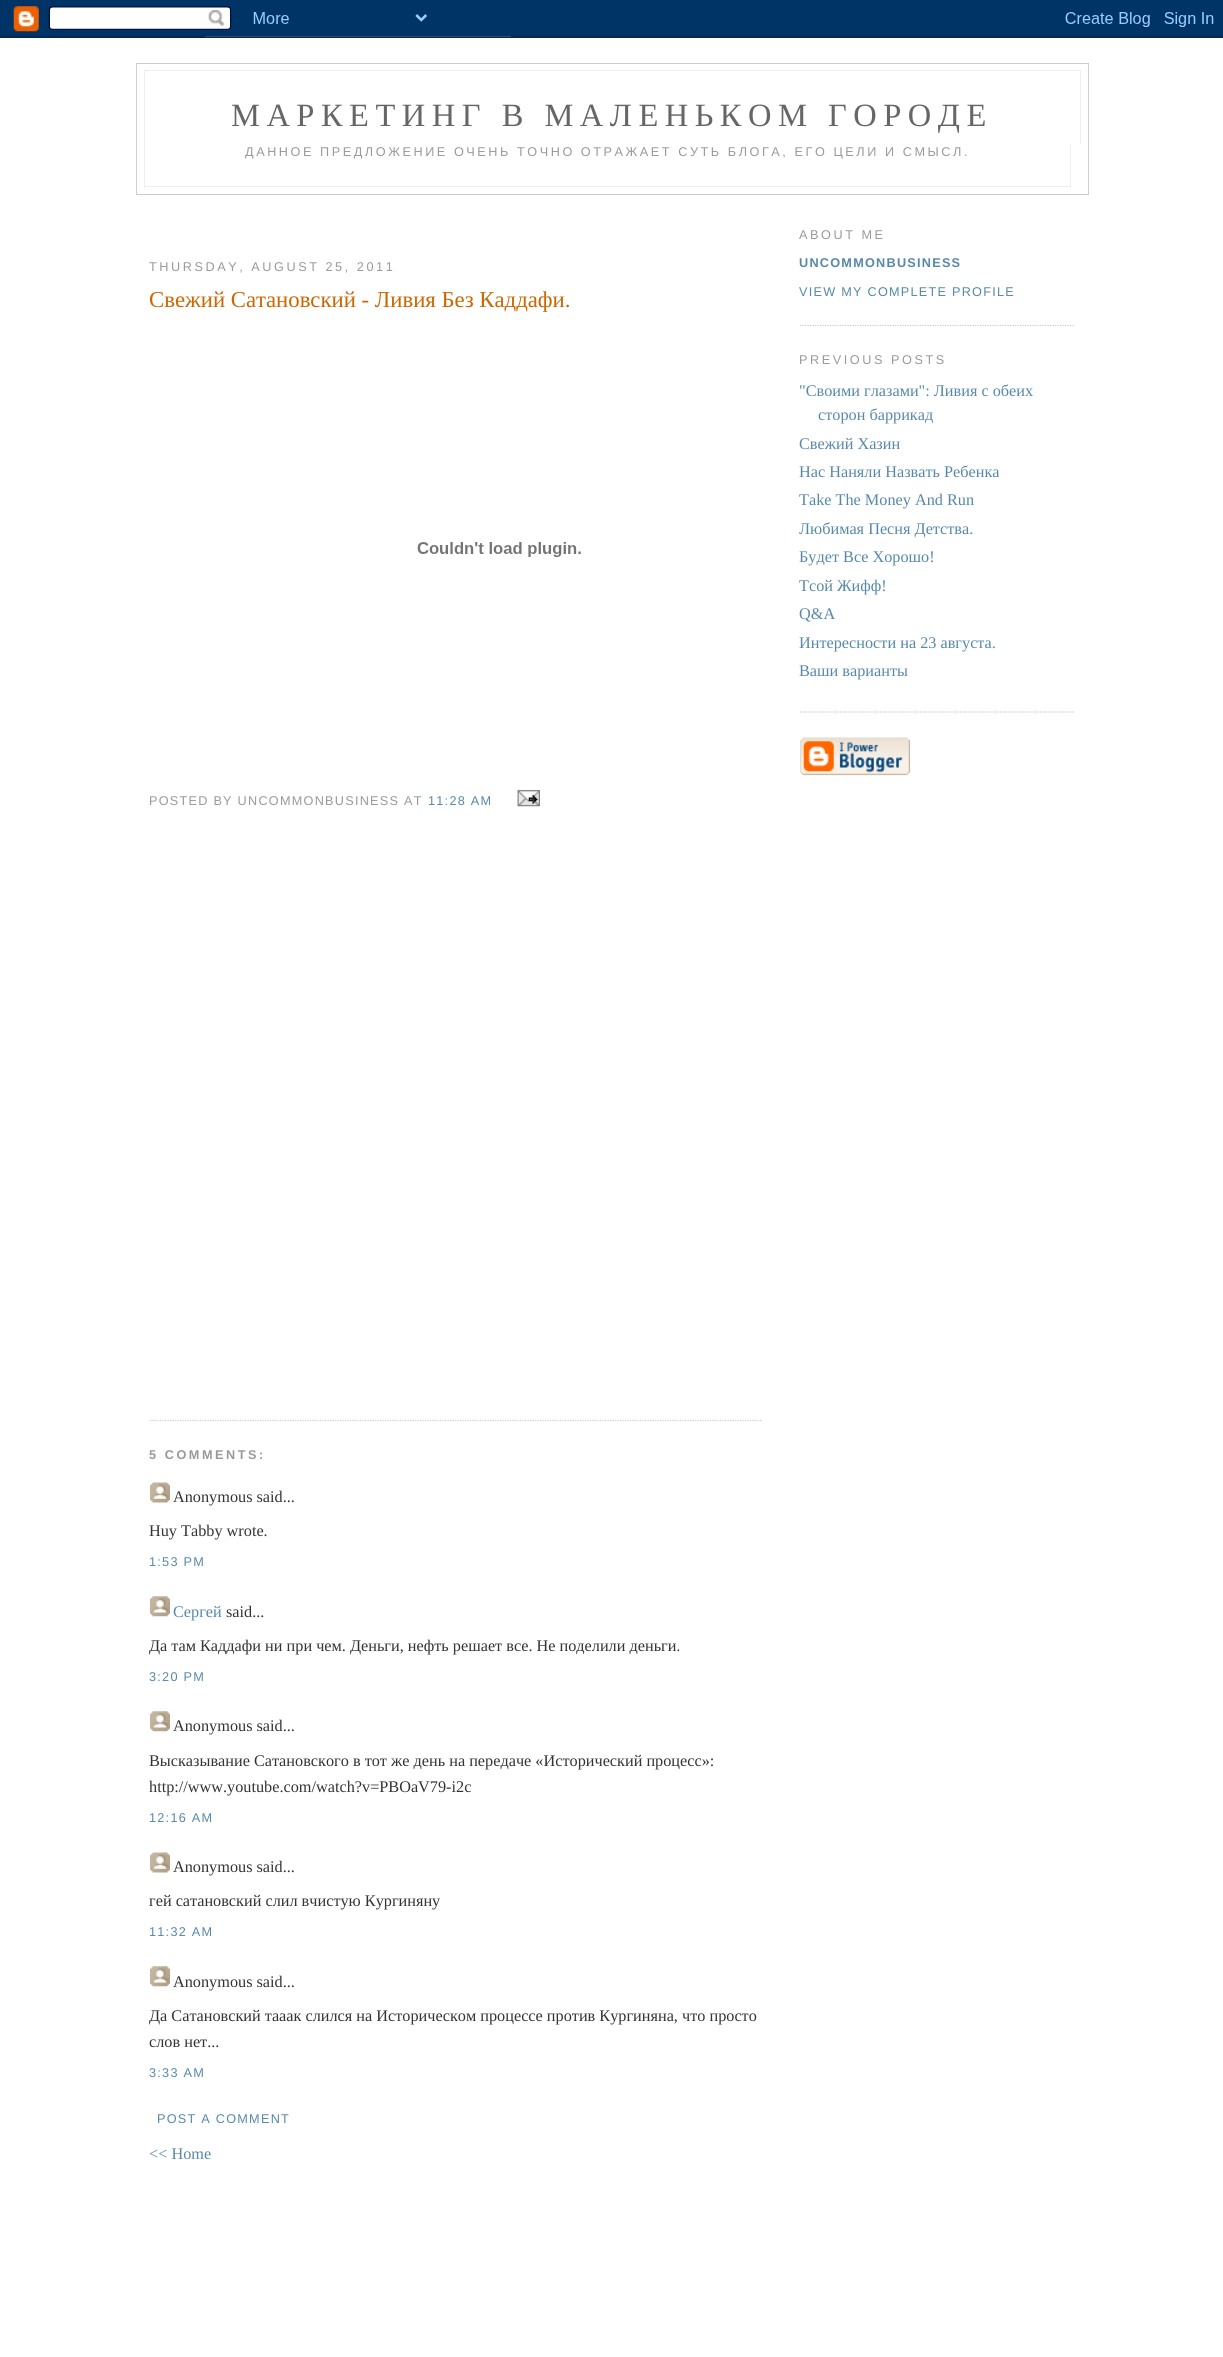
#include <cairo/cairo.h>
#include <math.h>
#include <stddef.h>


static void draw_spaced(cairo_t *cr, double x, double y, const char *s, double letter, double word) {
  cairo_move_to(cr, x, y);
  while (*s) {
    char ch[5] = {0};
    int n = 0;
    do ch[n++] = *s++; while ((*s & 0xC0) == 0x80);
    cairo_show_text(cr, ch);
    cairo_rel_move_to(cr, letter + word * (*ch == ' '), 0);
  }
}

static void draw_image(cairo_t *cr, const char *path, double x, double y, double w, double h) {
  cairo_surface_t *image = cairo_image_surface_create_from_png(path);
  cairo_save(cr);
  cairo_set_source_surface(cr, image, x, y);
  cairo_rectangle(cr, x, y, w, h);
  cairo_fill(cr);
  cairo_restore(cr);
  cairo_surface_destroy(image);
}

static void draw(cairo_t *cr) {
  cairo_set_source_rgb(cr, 1, 1, 1);
  cairo_paint(cr);
  draw_image(cr, "images/1.png", 0, 0, 1223, 38);
  cairo_rectangle(cr, 136.5, 63.5, 952, 131);
  cairo_set_source_rgb(cr, 204 / 255.0, 204 / 255.0, 204 / 255.0);
  cairo_set_line_width(cr, 1);
  cairo_stroke(cr);
  cairo_set_source_rgb(cr, 238 / 255.0, 238 / 255.0, 238 / 255.0);
  cairo_rectangle(cr, 144, 70, 937, 1);
  cairo_fill(cr);
  cairo_rectangle(cr, 1080, 70, 1, 74);
  cairo_fill(cr);
  cairo_rectangle(cr, 144, 70, 1, 74);
  cairo_fill(cr);
  cairo_rectangle(cr, 1070, 144, 1, 44);
  cairo_fill(cr);
  cairo_rectangle(cr, 144, 186, 927, 1);
  cairo_fill(cr);
  cairo_rectangle(cr, 144, 144, 1, 44);
  cairo_fill(cr);
  cairo_new_path(cr);
  cairo_move_to(cr, 150, 1420.5);
  cairo_line_to(cr, 762.5, 1420.5);
  cairo_set_source_rgb(cr, 204 / 255.0, 204 / 255.0, 204 / 255.0);
  cairo_set_line_width(cr, 1.2);
  cairo_set_dash(cr, (double[]){1.25, 1.25}, 2, 0);
  cairo_stroke(cr);
  draw_image(cr, "images/2.png", 417, 542, 164, 15);
  draw_image(cr, "images/3.png", 517, 790, 23, 17);
  draw_image(cr, "images/4.png", 150, 1482, 20, 21);
  draw_image(cr, "images/5.png", 150, 1596, 20, 21);
  draw_image(cr, "images/5.png", 150, 1711, 20, 21);
  draw_image(cr, "images/6.png", 150, 1852, 20, 21);
  draw_image(cr, "images/5.png", 150, 1966, 20, 21);
  cairo_new_path(cr);
  cairo_move_to(cr, 800, 325.5);
  cairo_line_to(cr, 1075, 325.5);
  cairo_stroke(cr);
  cairo_new_path(cr);
  cairo_move_to(cr, 800, 712);
  cairo_line_to(cr, 1075, 712);
  cairo_stroke(cr);
  draw_image(cr, "images/7.png", 800, 737, 110, 39);
  cairo_select_font_face(cr, "Liberation Serif", CAIRO_FONT_SLANT_NORMAL, CAIRO_FONT_WEIGHT_NORMAL);
  cairo_set_font_size(cr, 32.5);
  cairo_set_source_rgb(cr, 102 / 255.0, 102 / 255.0, 102 / 255.0);
  draw_spaced(cr, 231, 126, "МАРКЕТИНГ В МАЛЕНЬКОМ ГОРОДЕ", 6.5, 0);
  cairo_select_font_face(cr, "Liberation Sans", CAIRO_FONT_SLANT_NORMAL, CAIRO_FONT_WEIGHT_NORMAL);
  cairo_set_font_size(cr, 12.68);
  cairo_set_source_rgb(cr, 153 / 255.0, 153 / 255.0, 153 / 255.0);
  draw_spaced(cr, 245, 156, "ДАННОЕ ПРЕДЛОЖЕНИЕ ОЧЕНЬ ТОЧНО ОТРАЖАЕТ СУТЬ БЛОГА, ЕГО ЦЕЛИ И СМЫСЛ.", 2.55, 0);
  draw_spaced(cr, 149, 271, "THURSDAY, AUGUST 25, 2011", 2.55, 0);
  cairo_select_font_face(cr, "Liberation Serif", CAIRO_FONT_SLANT_NORMAL, CAIRO_FONT_WEIGHT_NORMAL);
  cairo_set_font_size(cr, 22.75);
  cairo_set_source_rgb(cr, 204 / 255.0, 102 / 255.0, 0);
  cairo_move_to(cr, 149, 307);
  cairo_show_text(cr, "Свежий Сатановский - Ливия Без Каддафи.");
  cairo_select_font_face(cr, "Liberation Sans", CAIRO_FONT_SLANT_NORMAL, CAIRO_FONT_WEIGHT_NORMAL);
  cairo_set_font_size(cr, 12.68);
  cairo_set_source_rgb(cr, 153 / 255.0, 153 / 255.0, 153 / 255.0);
  draw_spaced(cr, 149, 805, "POSTED BY UNCOMMONBUSINESS AT", 1.25, 0);
  cairo_set_source_rgb(cr, 85 / 255.0, 136 / 255.0, 170 / 255.0);
  draw_spaced(cr, 428, 805, "11:28 AM", 1.25, 0);
  cairo_select_font_face(cr, "Liberation Sans", CAIRO_FONT_SLANT_NORMAL, CAIRO_FONT_WEIGHT_BOLD);
  cairo_set_source_rgb(cr, 153 / 255.0, 153 / 255.0, 153 / 255.0);
  draw_spaced(cr, 149, 1459, "5 COMMENTS:", 2.55, 0);
  cairo_select_font_face(cr, "Liberation Serif", CAIRO_FONT_SLANT_NORMAL, CAIRO_FONT_WEIGHT_NORMAL);
  cairo_set_font_size(cr, 16.25);
  cairo_set_source_rgb(cr, 51 / 255.0, 51 / 255.0, 51 / 255.0);
  cairo_move_to(cr, 173, 1502);
  cairo_show_text(cr, "Anonymous said...");
  cairo_move_to(cr, 149, 1536);
  cairo_show_text(cr, "Huy Tabby wrote.");
  cairo_select_font_face(cr, "Liberation Sans", CAIRO_FONT_SLANT_NORMAL, CAIRO_FONT_WEIGHT_NORMAL);
  cairo_set_font_size(cr, 12.68);
  cairo_set_source_rgb(cr, 85 / 255.0, 136 / 255.0, 170 / 255.0);
  draw_spaced(cr, 149, 1566, "1:53 PM", 1.25, 0);
  cairo_select_font_face(cr, "Liberation Serif", CAIRO_FONT_SLANT_NORMAL, CAIRO_FONT_WEIGHT_NORMAL);
  cairo_set_font_size(cr, 16.25);
  cairo_move_to(cr, 173, 1617);
  cairo_show_text(cr, "Сергей");
  cairo_set_source_rgb(cr, 51 / 255.0, 51 / 255.0, 51 / 255.0);
  cairo_move_to(cr, 226, 1617);
  cairo_show_text(cr, "said...");
  cairo_move_to(cr, 149, 1651);
  cairo_show_text(cr, "Да там Каддафи ни при чем. Деньги, нефть решает все. Не поделили деньги.");
  cairo_select_font_face(cr, "Liberation Sans", CAIRO_FONT_SLANT_NORMAL, CAIRO_FONT_WEIGHT_NORMAL);
  cairo_set_font_size(cr, 12.68);
  cairo_set_source_rgb(cr, 85 / 255.0, 136 / 255.0, 170 / 255.0);
  draw_spaced(cr, 149, 1681, "3:20 PM", 1.25, 0);
  cairo_select_font_face(cr, "Liberation Serif", CAIRO_FONT_SLANT_NORMAL, CAIRO_FONT_WEIGHT_NORMAL);
  cairo_set_font_size(cr, 16.25);
  cairo_set_source_rgb(cr, 51 / 255.0, 51 / 255.0, 51 / 255.0);
  cairo_move_to(cr, 173, 1731);
  cairo_show_text(cr, "Anonymous said...");
  cairo_move_to(cr, 149, 1766);
  cairo_show_text(cr, "Высказывание Сатановского в тот же день на передаче «Исторический процесс»:");
  cairo_move_to(cr, 149, 1792);
  cairo_show_text(cr, "http://www.youtube.com/watch?v=PBOaV79-i2c");
  cairo_select_font_face(cr, "Liberation Sans", CAIRO_FONT_SLANT_NORMAL, CAIRO_FONT_WEIGHT_NORMAL);
  cairo_set_font_size(cr, 12.68);
  cairo_set_source_rgb(cr, 85 / 255.0, 136 / 255.0, 170 / 255.0);
  draw_spaced(cr, 149, 1822, "12:16 AM", 1.25, 0);
  cairo_select_font_face(cr, "Liberation Serif", CAIRO_FONT_SLANT_NORMAL, CAIRO_FONT_WEIGHT_NORMAL);
  cairo_set_font_size(cr, 16.25);
  cairo_set_source_rgb(cr, 51 / 255.0, 51 / 255.0, 51 / 255.0);
  cairo_move_to(cr, 173, 1872);
  cairo_show_text(cr, "Anonymous said...");
  cairo_move_to(cr, 149, 1906);
  cairo_show_text(cr, "гей сатановский слил вчистую Кургиняну");
  cairo_select_font_face(cr, "Liberation Sans", CAIRO_FONT_SLANT_NORMAL, CAIRO_FONT_WEIGHT_NORMAL);
  cairo_set_font_size(cr, 12.68);
  cairo_set_source_rgb(cr, 85 / 255.0, 136 / 255.0, 170 / 255.0);
  draw_spaced(cr, 149, 1936, "11:32 AM", 1.25, 0);
  cairo_select_font_face(cr, "Liberation Serif", CAIRO_FONT_SLANT_NORMAL, CAIRO_FONT_WEIGHT_NORMAL);
  cairo_set_font_size(cr, 16.25);
  cairo_set_source_rgb(cr, 51 / 255.0, 51 / 255.0, 51 / 255.0);
  cairo_move_to(cr, 173, 1987);
  cairo_show_text(cr, "Anonymous said...");
  cairo_move_to(cr, 149, 2021);
  cairo_show_text(cr, "Да Сатановский тааак слился на Историческом процессе против Кургиняна, что просто");
  cairo_move_to(cr, 149, 2047);
  cairo_show_text(cr, "слов нет...");
  cairo_select_font_face(cr, "Liberation Sans", CAIRO_FONT_SLANT_NORMAL, CAIRO_FONT_WEIGHT_NORMAL);
  cairo_set_font_size(cr, 12.68);
  cairo_set_source_rgb(cr, 85 / 255.0, 136 / 255.0, 170 / 255.0);
  draw_spaced(cr, 149, 2077, "3:33 AM", 1.25, 0);
  draw_spaced(cr, 157, 2123, "POST A COMMENT", 1.25, 0);
  cairo_select_font_face(cr, "Liberation Serif", CAIRO_FONT_SLANT_NORMAL, CAIRO_FONT_WEIGHT_NORMAL);
  cairo_set_font_size(cr, 16.25);
  cairo_move_to(cr, 149, 2159);
  cairo_show_text(cr, "<< Home");
  cairo_select_font_face(cr, "Liberation Sans", CAIRO_FONT_SLANT_NORMAL, CAIRO_FONT_WEIGHT_NORMAL);
  cairo_set_font_size(cr, 12.68);
  cairo_set_source_rgb(cr, 153 / 255.0, 153 / 255.0, 153 / 255.0);
  draw_spaced(cr, 799, 239, "ABOUT ME", 2.55, 0);
  cairo_select_font_face(cr, "Liberation Sans", CAIRO_FONT_SLANT_NORMAL, CAIRO_FONT_WEIGHT_BOLD);
  cairo_set_source_rgb(cr, 85 / 255.0, 136 / 255.0, 170 / 255.0);
  draw_spaced(cr, 799, 267, "UNCOMMONBUSINESS", 1.25, 0);
  cairo_select_font_face(cr, "Liberation Sans", CAIRO_FONT_SLANT_NORMAL, CAIRO_FONT_WEIGHT_NORMAL);
  draw_spaced(cr, 799, 296, "VIEW MY COMPLETE PROFILE", 1.25, 0);
  cairo_set_source_rgb(cr, 153 / 255.0, 153 / 255.0, 153 / 255.0);
  draw_spaced(cr, 799, 364, "PREVIOUS POSTS", 2.55, 0);
  cairo_select_font_face(cr, "Liberation Serif", CAIRO_FONT_SLANT_NORMAL, CAIRO_FONT_WEIGHT_NORMAL);
  cairo_set_font_size(cr, 16.25);
  cairo_set_source_rgb(cr, 85 / 255.0, 136 / 255.0, 170 / 255.0);
  cairo_move_to(cr, 799, 396);
  cairo_show_text(cr, "\"Своими глазами\": Ливия с обеих");
  cairo_move_to(cr, 818, 420);
  cairo_show_text(cr, "сторон баррикад");
  cairo_move_to(cr, 799, 449);
  cairo_show_text(cr, "Свежий Хазин");
  cairo_move_to(cr, 799, 477);
  cairo_show_text(cr, "Нас Наняли Назвать Ребенка");
  cairo_move_to(cr, 799, 505);
  cairo_show_text(cr, "Take The Money And Run");
  cairo_move_to(cr, 799, 534);
  cairo_show_text(cr, "Любимая Песня Детства.");
  cairo_move_to(cr, 799, 562);
  cairo_show_text(cr, "Будет Все Хорошо!");
  cairo_move_to(cr, 799, 591);
  cairo_show_text(cr, "Тсой Жифф!");
  cairo_move_to(cr, 799, 619);
  cairo_show_text(cr, "Q&A");
  cairo_move_to(cr, 799, 648);
  cairo_show_text(cr, "Интересности на 23 августа.");
  cairo_move_to(cr, 799, 676);
  cairo_show_text(cr, "Ваши варианты");
}

int main(void) {
  cairo_surface_t *surface = cairo_image_surface_create(CAIRO_FORMAT_RGB24, 1223, 2357);
  cairo_t *cr = cairo_create(surface);
  cairo_font_options_t *options = cairo_font_options_create();
  cairo_font_options_set_hint_metrics(options, CAIRO_HINT_METRICS_OFF);
  cairo_font_options_set_hint_style(options, CAIRO_HINT_STYLE_NONE);
  cairo_set_font_options(cr, options);
  cairo_set_miter_limit(cr, 4);
  draw(cr);
  cairo_surface_write_to_png(surface, "out.png");
  cairo_font_options_destroy(options);
  cairo_destroy(cr);
  cairo_surface_destroy(surface);
  return 0;
}
